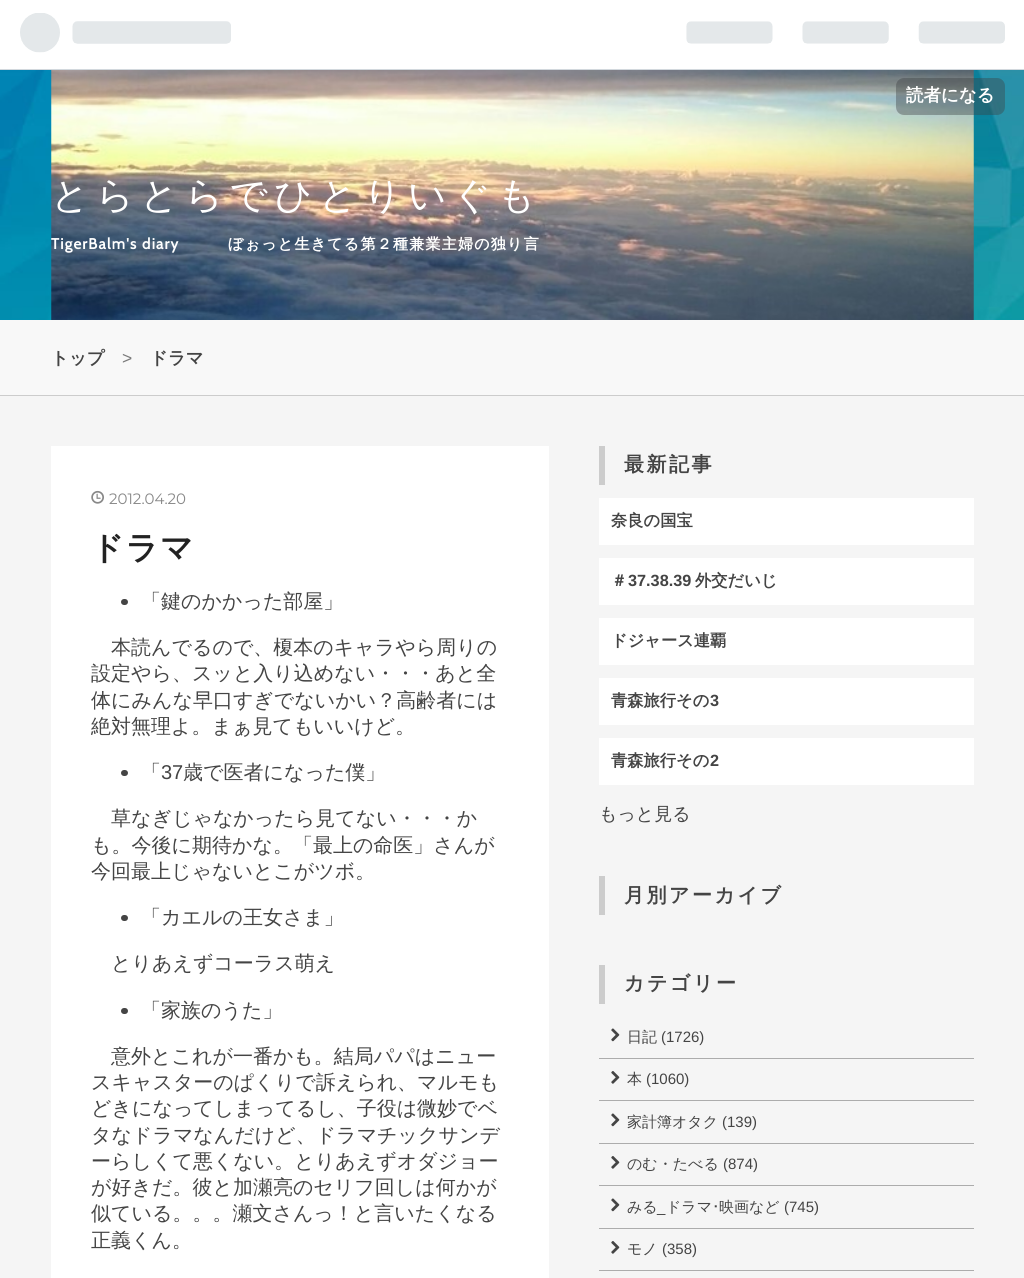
#include <cairo/cairo.h>
#include <math.h>
#include <stddef.h>


static void draw_spaced(cairo_t *cr, double x, double y, const char *s, double letter, double word) {
  cairo_move_to(cr, x, y);
  while (*s) {
    char ch[5] = {0};
    int n = 0;
    do ch[n++] = *s++; while ((*s & 0xC0) == 0x80);
    cairo_show_text(cr, ch);
    cairo_rel_move_to(cr, letter + word * (*ch == ' '), 0);
  }
}

static void rounded_rect(cairo_t *cr, double x, double y, double w, double h, double r) {
  cairo_new_sub_path(cr);
  cairo_arc(cr, x + w - r, y + h - r, r, 0, M_PI / 2);
  cairo_arc(cr, x + r, y + h - r, r, M_PI / 2, M_PI);
  cairo_arc(cr, x + r, y + r, r, M_PI, 1.5 * M_PI);
  cairo_arc(cr, x + w - r, y + r, r, 1.5 * M_PI, 2 * M_PI);
  cairo_close_path(cr);
}

static void draw_image(cairo_t *cr, const char *path, double x, double y, double w, double h) {
  cairo_surface_t *image = cairo_image_surface_create_from_png(path);
  cairo_save(cr);
  cairo_set_source_surface(cr, image, x, y);
  cairo_rectangle(cr, x, y, w, h);
  cairo_fill(cr);
  cairo_restore(cr);
  cairo_surface_destroy(image);
}

static void draw(cairo_t *cr) {
  cairo_set_source_rgb(cr, 1, 1, 1);
  cairo_paint(cr);
  draw_image(cr, "images/1.png", 0, 70, 1024, 250);
  cairo_set_source_rgb(cr, 210 / 255.0, 216 / 255.0, 221 / 255.0);
  cairo_rectangle(cr, 0, 69, 1024, 1);
  cairo_fill(cr);
  draw_image(cr, "images/2.png", 20, 13, 211, 40);
  draw_image(cr, "images/3.png", 686, 21, 319, 23);
  draw_image(cr, "images/4.png", 51, 70, 923, 250);
  cairo_set_source_rgba(cr, 61 / 255.0, 66 / 255.0, 69 / 255.0, 0.4);
  rounded_rect(cr, 896, 78, 109, 37, 8);
  cairo_fill(cr);
  cairo_set_source_rgb(cr, 248 / 255.0, 248 / 255.0, 248 / 255.0);
  cairo_rectangle(cr, 0, 320, 1024, 75);
  cairo_fill(cr);
  cairo_set_source_rgb(cr, 204 / 255.0, 204 / 255.0, 204 / 255.0);
  cairo_rectangle(cr, 0, 395, 1024, 1);
  cairo_fill(cr);
  cairo_set_source_rgb(cr, 245 / 255.0, 245 / 255.0, 245 / 255.0);
  cairo_rectangle(cr, 0, 396, 1024, 882);
  cairo_fill(cr);
  cairo_set_source_rgb(cr, 1, 1, 1);
  cairo_rectangle(cr, 51, 446, 498, 832);
  cairo_fill(cr);
  draw_image(cr, "images/5.png", 91, 490, 13, 14);
  cairo_set_source_rgb(cr, 68 / 255.0, 68 / 255.0, 68 / 255.0);
  rounded_rect(cr, 121, 599, 7, 6, 3);
  cairo_fill(cr);
  rounded_rect(cr, 121, 770, 7, 6, 3);
  cairo_fill(cr);
  rounded_rect(cr, 121, 915, 7, 6, 3);
  cairo_fill(cr);
  rounded_rect(cr, 121, 1008, 7, 6, 3);
  cairo_fill(cr);
  cairo_set_source_rgb(cr, 204 / 255.0, 204 / 255.0, 204 / 255.0);
  cairo_rectangle(cr, 599, 446, 6, 39);
  cairo_fill(cr);
  cairo_set_source_rgb(cr, 1, 1, 1);
  cairo_rectangle(cr, 599, 498, 375, 47);
  cairo_fill(cr);
  cairo_rectangle(cr, 599, 558, 375, 47);
  cairo_fill(cr);
  cairo_rectangle(cr, 599, 618, 375, 47);
  cairo_fill(cr);
  cairo_rectangle(cr, 599, 678, 375, 47);
  cairo_fill(cr);
  cairo_rectangle(cr, 599, 738, 375, 47);
  cairo_fill(cr);
  cairo_set_source_rgb(cr, 204 / 255.0, 204 / 255.0, 204 / 255.0);
  cairo_rectangle(cr, 599, 876, 6, 39);
  cairo_fill(cr);
  cairo_rectangle(cr, 599, 965, 6, 39);
  cairo_fill(cr);
  cairo_set_source_rgb(cr, 172 / 255.0, 172 / 255.0, 172 / 255.0);
  cairo_rectangle(cr, 599, 1058, 375, 1);
  cairo_fill(cr);
  draw_image(cr, "images/6.png", 611, 1028, 9, 14);
  cairo_rectangle(cr, 599, 1100, 375, 1);
  cairo_fill(cr);
  draw_image(cr, "images/7.png", 611, 1071, 9, 13);
  cairo_rectangle(cr, 599, 1143, 375, 1);
  cairo_fill(cr);
  draw_image(cr, "images/6.png", 611, 1113, 9, 14);
  cairo_rectangle(cr, 599, 1185, 375, 1);
  cairo_fill(cr);
  draw_image(cr, "images/7.png", 611, 1156, 9, 13);
  cairo_rectangle(cr, 599, 1228, 375, 1);
  cairo_fill(cr);
  draw_image(cr, "images/6.png", 611, 1198, 9, 14);
  cairo_rectangle(cr, 599, 1270, 375, 1);
  cairo_fill(cr);
  draw_image(cr, "images/7.png", 611, 1241, 9, 13);
  cairo_select_font_face(cr, "WenQuanYi Zen Hei", CAIRO_FONT_SLANT_NORMAL, CAIRO_FONT_WEIGHT_BOLD);
  cairo_set_font_size(cr, 17.5);
  cairo_set_source_rgb(cr, 1, 1, 1);
  cairo_move_to(cr, 906, 101);
  cairo_show_text(cr, "読者になる");
  cairo_select_font_face(cr, "WenQuanYi Zen Hei Medium", CAIRO_FONT_SLANT_NORMAL, CAIRO_FONT_WEIGHT_NORMAL);
  cairo_set_font_size(cr, 37.5);
  draw_spaced(cr, 51, 208, "とらとらでひとりいぐも", 6.25, 0);
  cairo_select_font_face(cr, "Cabin", CAIRO_FONT_SLANT_NORMAL, CAIRO_FONT_WEIGHT_BOLD);
  cairo_set_font_size(cr, 15);
  draw_spaced(cr, 51, 249, "TigerBalm's diary", 1.25, 0);
  cairo_select_font_face(cr, "WenQuanYi Zen Hei", CAIRO_FONT_SLANT_NORMAL, CAIRO_FONT_WEIGHT_BOLD);
  draw_spaced(cr, 228, 249, "ぼぉっと生きてる第２種兼業主婦の独り言", 1.25, 0);
  cairo_set_font_size(cr, 17.5);
  cairo_set_source_rgb(cr, 68 / 255.0, 68 / 255.0, 68 / 255.0);
  cairo_move_to(cr, 51, 364);
  cairo_show_text(cr, "トップ");
  cairo_select_font_face(cr, "Liberation Sans", CAIRO_FONT_SLANT_NORMAL, CAIRO_FONT_WEIGHT_NORMAL);
  cairo_set_source_rgb(cr, 122 / 255.0, 122 / 255.0, 122 / 255.0);
  cairo_move_to(cr, 122, 364);
  cairo_show_text(cr, ">");
  cairo_select_font_face(cr, "WenQuanYi Zen Hei", CAIRO_FONT_SLANT_NORMAL, CAIRO_FONT_WEIGHT_BOLD);
  cairo_set_source_rgb(cr, 68 / 255.0, 68 / 255.0, 68 / 255.0);
  cairo_move_to(cr, 150, 364);
  cairo_show_text(cr, "ドラマ");
  cairo_select_font_face(cr, "Montserrat Thin", CAIRO_FONT_SLANT_NORMAL, CAIRO_FONT_WEIGHT_NORMAL);
  cairo_set_font_size(cr, 15);
  cairo_set_source_rgb(cr, 136 / 255.0, 136 / 255.0, 136 / 255.0);
  cairo_move_to(cr, 109, 504);
  cairo_show_text(cr, "2012.04.20");
  cairo_select_font_face(cr, "WenQuanYi Zen Hei", CAIRO_FONT_SLANT_NORMAL, CAIRO_FONT_WEIGHT_BOLD);
  cairo_set_font_size(cr, 32.5);
  cairo_set_source_rgb(cr, 34 / 255.0, 34 / 255.0, 34 / 255.0);
  draw_spaced(cr, 91, 559, "ドラマ", 1.25, 0);
  cairo_select_font_face(cr, "WenQuanYi Zen Hei Medium", CAIRO_FONT_SLANT_NORMAL, CAIRO_FONT_WEIGHT_NORMAL);
  cairo_set_font_size(cr, 20);
  cairo_set_source_rgb(cr, 68 / 255.0, 68 / 255.0, 68 / 255.0);
  cairo_move_to(cr, 141, 608);
  cairo_show_text(cr, "「鍵のかかった部屋」");
  cairo_move_to(cr, 111, 654);
  cairo_show_text(cr, "本読んでるので、榎本のキャラやら周りの");
  cairo_move_to(cr, 91, 680);
  cairo_show_text(cr, "設定やら、スッと入り込めない・・・あと全");
  cairo_move_to(cr, 91, 707);
  cairo_show_text(cr, "体にみんな早口すぎでないかい？高齢者には");
  cairo_move_to(cr, 91, 733);
  cairo_show_text(cr, "絶対無理よ。まぁ見てもいいけど。");
  cairo_move_to(cr, 141, 779);
  cairo_show_text(cr, "「");
  cairo_select_font_face(cr, "Liberation Sans", CAIRO_FONT_SLANT_NORMAL, CAIRO_FONT_WEIGHT_NORMAL);
  cairo_move_to(cr, 161, 779);
  cairo_show_text(cr, "37");
  cairo_select_font_face(cr, "WenQuanYi Zen Hei Medium", CAIRO_FONT_SLANT_NORMAL, CAIRO_FONT_WEIGHT_NORMAL);
  cairo_move_to(cr, 183, 779);
  cairo_show_text(cr, "歳で医者になった僕」");
  cairo_move_to(cr, 111, 825);
  cairo_show_text(cr, "草なぎじゃなかったら見てない・・・か");
  cairo_move_to(cr, 91, 852);
  cairo_show_text(cr, "も。今後に期待かな。「最上の命医」さんが");
  cairo_move_to(cr, 91, 878);
  cairo_show_text(cr, "今回最上じゃないとこがツボ。");
  cairo_move_to(cr, 141, 924);
  cairo_show_text(cr, "「カエルの王女さま」");
  cairo_move_to(cr, 111, 970);
  cairo_show_text(cr, "とりあえずコーラス萌え");
  cairo_move_to(cr, 141, 1017);
  cairo_show_text(cr, "「家族のうた」");
  cairo_move_to(cr, 111, 1063);
  cairo_show_text(cr, "意外とこれが一番かも。結局パパはニュー");
  cairo_move_to(cr, 91, 1089);
  cairo_show_text(cr, "スキャスターのぱくりで訴えられ、マルモも");
  cairo_move_to(cr, 91, 1115);
  cairo_show_text(cr, "どきになってしまってるし、子役は微妙でベ");
  cairo_move_to(cr, 91, 1142);
  cairo_show_text(cr, "タなドラマなんだけど、ドラマチックサンデ");
  cairo_move_to(cr, 91, 1168);
  cairo_show_text(cr, "ーらしくて悪くない。とりあえずオダジョー");
  cairo_move_to(cr, 91, 1194);
  cairo_show_text(cr, "が好きだ。彼と加瀬亮のセリフ回しは何かが");
  cairo_move_to(cr, 91, 1220);
  cairo_show_text(cr, "似ている。。。瀬文さんっ！と言いたくなる");
  cairo_move_to(cr, 91, 1247);
  cairo_show_text(cr, "正義くん。");
  cairo_select_font_face(cr, "WenQuanYi Zen Hei", CAIRO_FONT_SLANT_NORMAL, CAIRO_FONT_WEIGHT_BOLD);
  draw_spaced(cr, 624, 471, "最新記事", 2.5, 0);
  cairo_set_font_size(cr, 16.25);
  cairo_move_to(cr, 611, 526);
  cairo_show_text(cr, "奈良の国宝");
  cairo_move_to(cr, 611, 586);
  cairo_show_text(cr, "＃");
  cairo_select_font_face(cr, "Liberation Sans", CAIRO_FONT_SLANT_NORMAL, CAIRO_FONT_WEIGHT_BOLD);
  cairo_move_to(cr, 628, 586);
  cairo_show_text(cr, "37.38.39");
  cairo_select_font_face(cr, "WenQuanYi Zen Hei", CAIRO_FONT_SLANT_NORMAL, CAIRO_FONT_WEIGHT_BOLD);
  cairo_move_to(cr, 695, 586);
  cairo_show_text(cr, "外交だいじ");
  cairo_move_to(cr, 611, 646);
  cairo_show_text(cr, "ドジャース連覇");
  cairo_move_to(cr, 611, 706);
  cairo_show_text(cr, "青森旅行その");
  cairo_select_font_face(cr, "Liberation Sans", CAIRO_FONT_SLANT_NORMAL, CAIRO_FONT_WEIGHT_BOLD);
  cairo_move_to(cr, 710, 706);
  cairo_show_text(cr, "3");
  cairo_select_font_face(cr, "WenQuanYi Zen Hei", CAIRO_FONT_SLANT_NORMAL, CAIRO_FONT_WEIGHT_BOLD);
  cairo_move_to(cr, 611, 766);
  cairo_show_text(cr, "青森旅行その");
  cairo_select_font_face(cr, "Liberation Sans", CAIRO_FONT_SLANT_NORMAL, CAIRO_FONT_WEIGHT_BOLD);
  cairo_move_to(cr, 710, 766);
  cairo_show_text(cr, "2");
  cairo_select_font_face(cr, "WenQuanYi Zen Hei Medium", CAIRO_FONT_SLANT_NORMAL, CAIRO_FONT_WEIGHT_NORMAL);
  cairo_set_font_size(cr, 18);
  cairo_move_to(cr, 599, 820);
  cairo_show_text(cr, "もっと見る");
  cairo_select_font_face(cr, "WenQuanYi Zen Hei", CAIRO_FONT_SLANT_NORMAL, CAIRO_FONT_WEIGHT_BOLD);
  cairo_set_font_size(cr, 20);
  draw_spaced(cr, 624, 902, "月別アーカイブ", 2.5, 0);
  draw_spaced(cr, 624, 990, "カテゴリー", 2.5, 0);
  cairo_select_font_face(cr, "WenQuanYi Zen Hei Medium", CAIRO_FONT_SLANT_NORMAL, CAIRO_FONT_WEIGHT_NORMAL);
  cairo_set_font_size(cr, 15);
  cairo_move_to(cr, 627, 1042);
  cairo_show_text(cr, "日記");
  cairo_select_font_face(cr, "Liberation Sans", CAIRO_FONT_SLANT_NORMAL, CAIRO_FONT_WEIGHT_NORMAL);
  cairo_move_to(cr, 661, 1042);
  cairo_show_text(cr, "(1726)");
  cairo_select_font_face(cr, "WenQuanYi Zen Hei Medium", CAIRO_FONT_SLANT_NORMAL, CAIRO_FONT_WEIGHT_NORMAL);
  cairo_move_to(cr, 627, 1084);
  cairo_show_text(cr, "本");
  cairo_select_font_face(cr, "Liberation Sans", CAIRO_FONT_SLANT_NORMAL, CAIRO_FONT_WEIGHT_NORMAL);
  cairo_move_to(cr, 646, 1084);
  cairo_show_text(cr, "(1060)");
  cairo_select_font_face(cr, "WenQuanYi Zen Hei Medium", CAIRO_FONT_SLANT_NORMAL, CAIRO_FONT_WEIGHT_NORMAL);
  cairo_move_to(cr, 627, 1127);
  cairo_show_text(cr, "家計簿オタク");
  cairo_select_font_face(cr, "Liberation Sans", CAIRO_FONT_SLANT_NORMAL, CAIRO_FONT_WEIGHT_NORMAL);
  cairo_move_to(cr, 722, 1127);
  cairo_show_text(cr, "(139)");
  cairo_select_font_face(cr, "WenQuanYi Zen Hei Medium", CAIRO_FONT_SLANT_NORMAL, CAIRO_FONT_WEIGHT_NORMAL);
  cairo_move_to(cr, 627, 1169);
  cairo_show_text(cr, "のむ・たべる");
  cairo_select_font_face(cr, "Liberation Sans", CAIRO_FONT_SLANT_NORMAL, CAIRO_FONT_WEIGHT_NORMAL);
  cairo_move_to(cr, 723, 1169);
  cairo_show_text(cr, "(874)");
  cairo_select_font_face(cr, "WenQuanYi Zen Hei Medium", CAIRO_FONT_SLANT_NORMAL, CAIRO_FONT_WEIGHT_NORMAL);
  cairo_move_to(cr, 627, 1212);
  cairo_show_text(cr, "みる");
  cairo_move_to(cr, 666, 1212);
  cairo_show_text(cr, "ドラマ");
  cairo_select_font_face(cr, "IPAPGothic", CAIRO_FONT_SLANT_NORMAL, CAIRO_FONT_WEIGHT_NORMAL);
  cairo_move_to(cr, 712, 1212);
  cairo_show_text(cr, "･");
  cairo_select_font_face(cr, "WenQuanYi Zen Hei Medium", CAIRO_FONT_SLANT_NORMAL, CAIRO_FONT_WEIGHT_NORMAL);
  cairo_move_to(cr, 719, 1212);
  cairo_show_text(cr, "映画など");
  cairo_select_font_face(cr, "Liberation Sans", CAIRO_FONT_SLANT_NORMAL, CAIRO_FONT_WEIGHT_NORMAL);
  cairo_move_to(cr, 784, 1212);
  cairo_show_text(cr, "(745)");
  cairo_move_to(cr, 657, 1212);
  cairo_show_text(cr, "_");
  cairo_select_font_face(cr, "WenQuanYi Zen Hei Medium", CAIRO_FONT_SLANT_NORMAL, CAIRO_FONT_WEIGHT_NORMAL);
  cairo_move_to(cr, 627, 1254);
  cairo_show_text(cr, "モノ");
  cairo_select_font_face(cr, "Liberation Sans", CAIRO_FONT_SLANT_NORMAL, CAIRO_FONT_WEIGHT_NORMAL);
  cairo_move_to(cr, 662, 1254);
  cairo_show_text(cr, "(358)");
}

int main(void) {
  cairo_surface_t *surface = cairo_image_surface_create(CAIRO_FORMAT_RGB24, 1024, 1278);
  cairo_t *cr = cairo_create(surface);
  cairo_font_options_t *options = cairo_font_options_create();
  cairo_font_options_set_hint_metrics(options, CAIRO_HINT_METRICS_OFF);
  cairo_font_options_set_hint_style(options, CAIRO_HINT_STYLE_NONE);
  cairo_set_font_options(cr, options);
  cairo_set_miter_limit(cr, 4);
  draw(cr);
  cairo_surface_write_to_png(surface, "out.png");
  cairo_font_options_destroy(options);
  cairo_destroy(cr);
  cairo_surface_destroy(surface);
  return 0;
}
